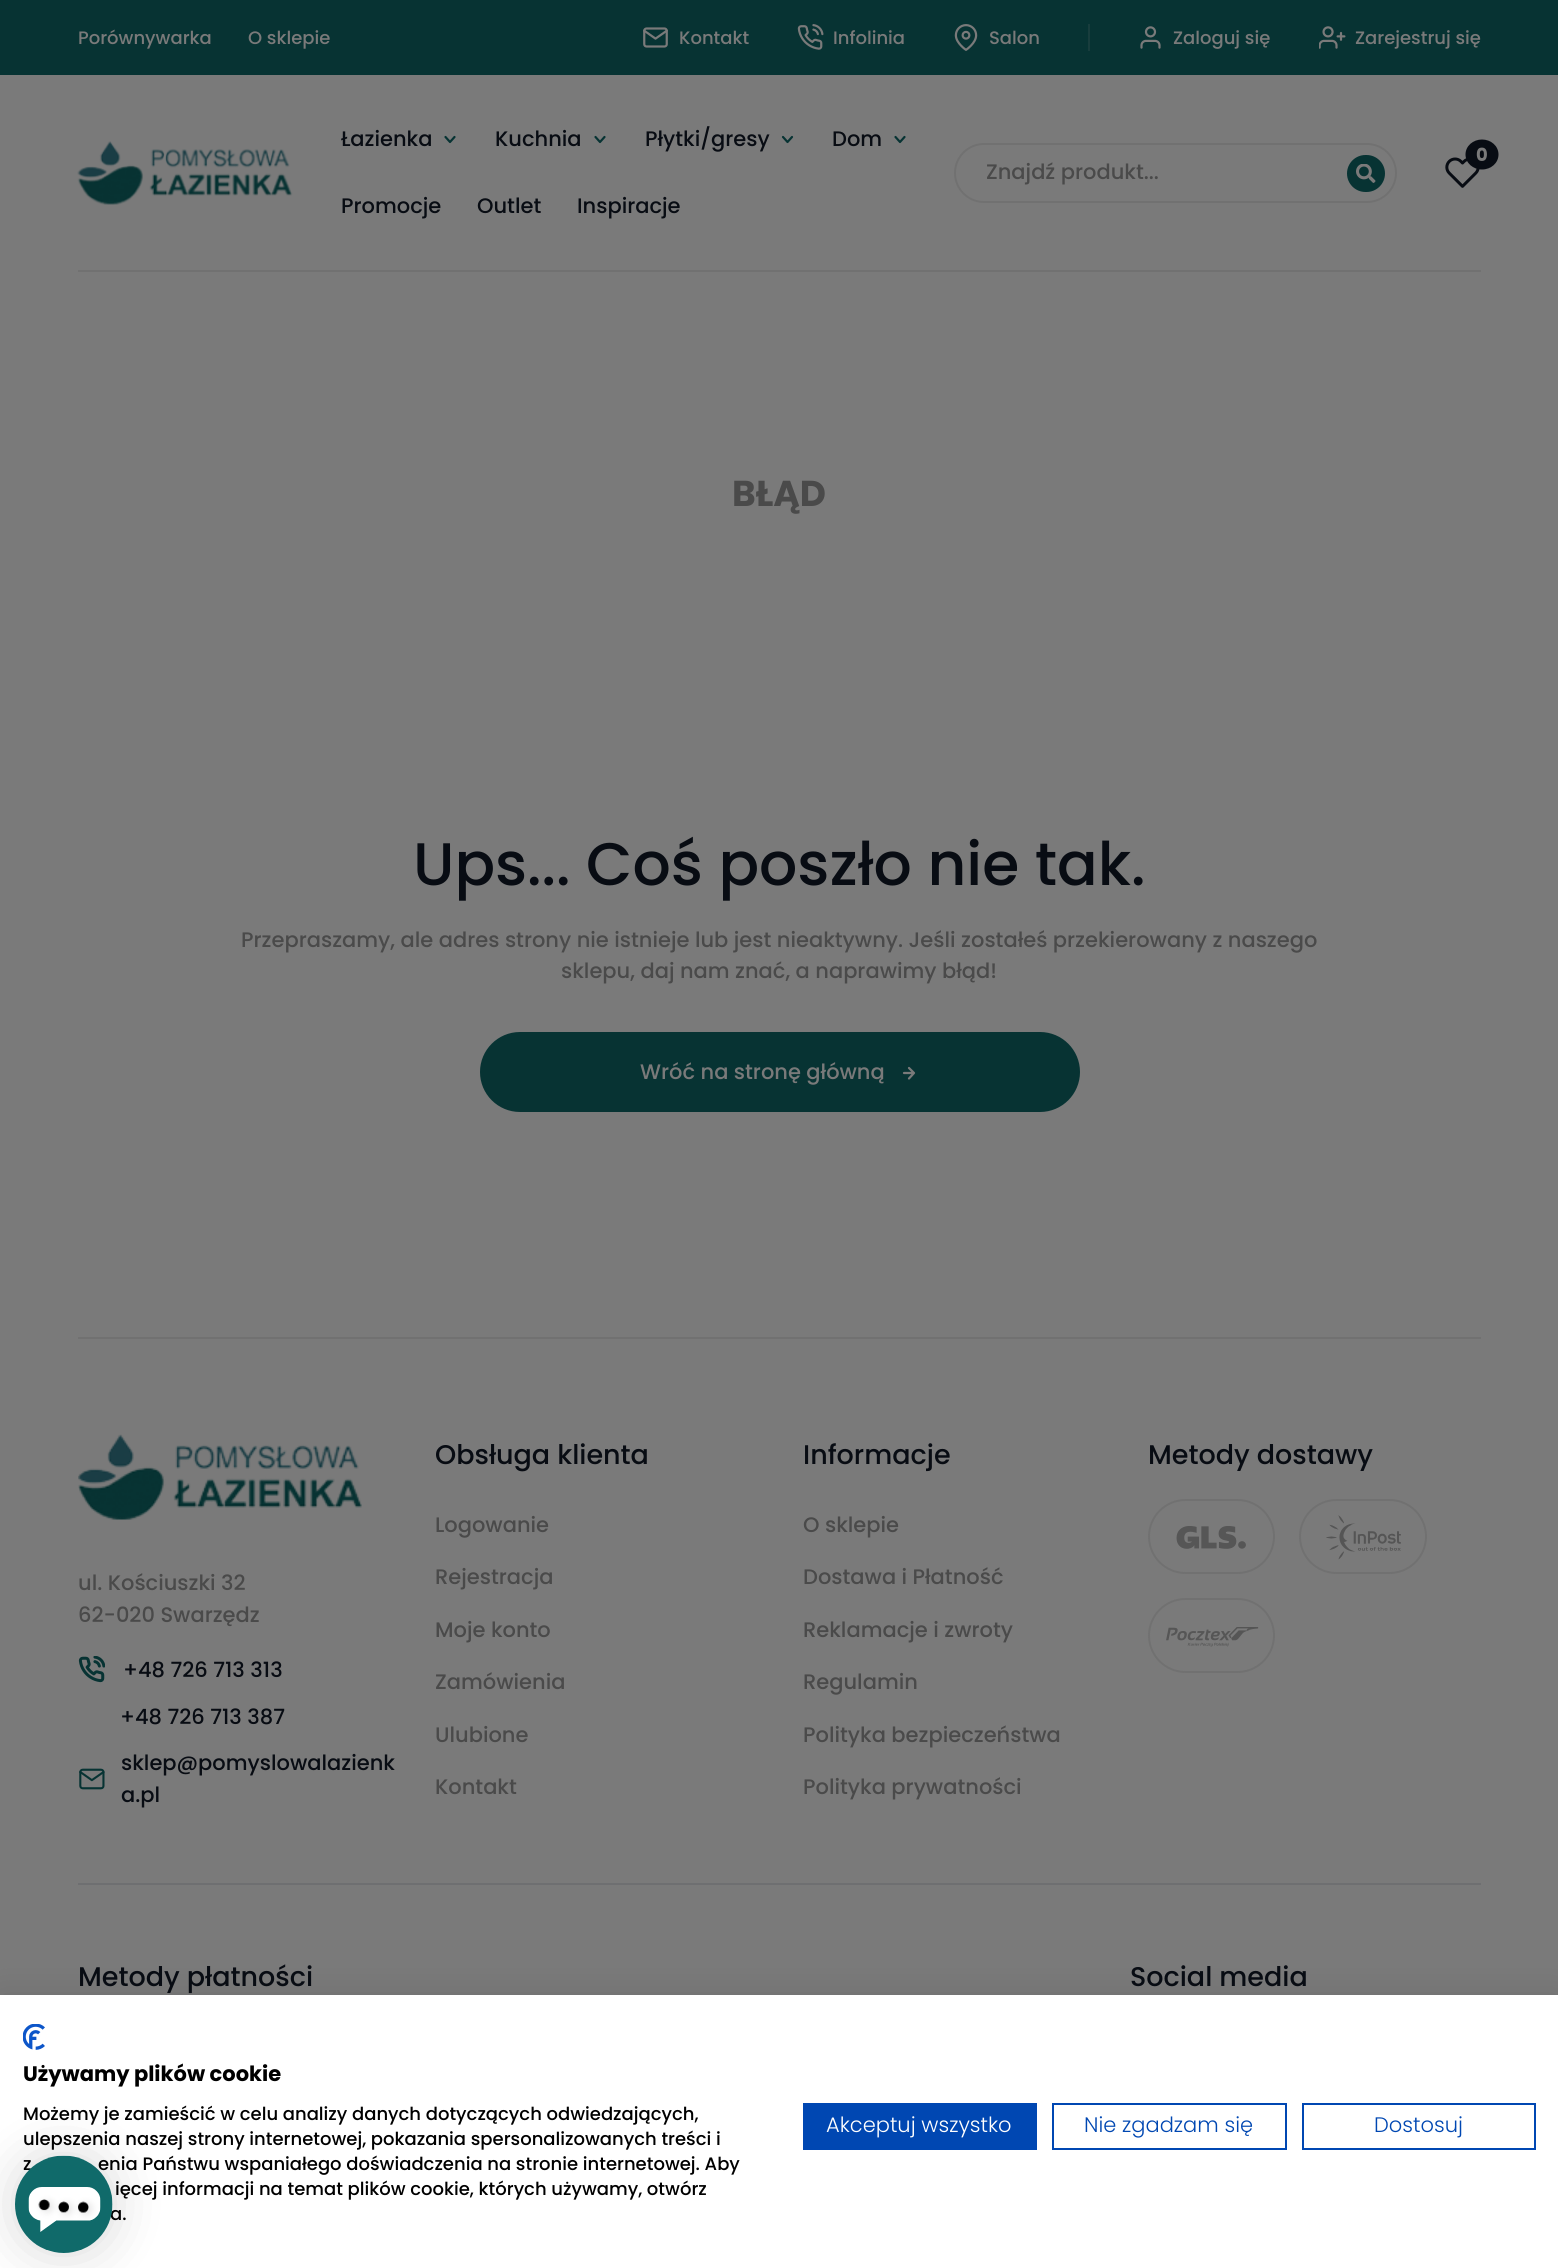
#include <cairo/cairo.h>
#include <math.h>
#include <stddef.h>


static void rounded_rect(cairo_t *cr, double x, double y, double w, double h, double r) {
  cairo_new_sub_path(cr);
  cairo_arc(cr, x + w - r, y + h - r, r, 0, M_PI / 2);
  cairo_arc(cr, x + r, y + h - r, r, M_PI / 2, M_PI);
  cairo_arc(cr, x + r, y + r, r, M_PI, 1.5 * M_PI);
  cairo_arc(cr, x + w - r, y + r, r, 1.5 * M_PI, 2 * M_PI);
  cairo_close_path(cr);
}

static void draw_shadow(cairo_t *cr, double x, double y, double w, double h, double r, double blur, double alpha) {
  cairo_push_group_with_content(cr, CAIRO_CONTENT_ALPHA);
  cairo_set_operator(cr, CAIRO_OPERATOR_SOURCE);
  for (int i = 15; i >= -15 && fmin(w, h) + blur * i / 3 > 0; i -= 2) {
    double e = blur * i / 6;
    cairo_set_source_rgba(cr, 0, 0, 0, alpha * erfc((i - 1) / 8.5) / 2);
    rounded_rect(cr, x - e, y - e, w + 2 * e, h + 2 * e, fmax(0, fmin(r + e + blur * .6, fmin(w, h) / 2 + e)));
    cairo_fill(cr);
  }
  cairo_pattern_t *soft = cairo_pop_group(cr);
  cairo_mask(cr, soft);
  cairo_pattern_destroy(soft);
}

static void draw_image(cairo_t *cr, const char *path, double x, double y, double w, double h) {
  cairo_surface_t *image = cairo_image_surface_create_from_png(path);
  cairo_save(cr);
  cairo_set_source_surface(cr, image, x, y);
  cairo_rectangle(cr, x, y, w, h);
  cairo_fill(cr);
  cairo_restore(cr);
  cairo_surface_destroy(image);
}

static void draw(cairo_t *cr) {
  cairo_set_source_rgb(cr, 122 / 255.0, 122 / 255.0, 122 / 255.0);
  cairo_paint(cr);
  cairo_set_source_rgb(cr, 7 / 255.0, 51 / 255.0, 51 / 255.0);
  cairo_rectangle(cr, 0, 0, 1558, 75);
  cairo_fill(cr);
  draw_image(cr, "images/1.png", 643, 27, 25, 21);
  draw_image(cr, "images/2.png", 797, 24, 27, 26);
  draw_image(cr, "images/3.png", 954, 24, 24, 27);
  cairo_set_source_rgb(cr, 24 / 255.0, 61 / 255.0, 61 / 255.0);
  cairo_rectangle(cr, 1088, 24, 2, 27);
  cairo_fill(cr);
  draw_image(cr, "images/4.png", 1140, 26, 21, 23);
  draw_image(cr, "images/5.png", 1319, 26, 27, 23);
  draw_image(cr, "images/6.png", 77, 141, 216, 64);
  cairo_new_path(cr);
  cairo_move_to(cr, 445.5, 137);
  cairo_line_to(cr, 450, 142);
  cairo_line_to(cr, 454.5, 137);
  cairo_set_source_rgb(cr, 7 / 255.0, 51 / 255.0, 51 / 255.0);
  cairo_set_line_width(cr, 2.2);
  cairo_set_line_cap(cr, CAIRO_LINE_CAP_ROUND);
  cairo_set_line_join(cr, CAIRO_LINE_JOIN_ROUND);
  cairo_stroke(cr);
  cairo_new_path(cr);
  cairo_move_to(cr, 595.5, 137);
  cairo_line_to(cr, 600, 142);
  cairo_line_to(cr, 604.5, 137);
  cairo_stroke(cr);
  cairo_new_path(cr);
  cairo_move_to(cr, 783, 137);
  cairo_line_to(cr, 787.5, 142);
  cairo_line_to(cr, 792, 137);
  cairo_stroke(cr);
  cairo_new_path(cr);
  cairo_move_to(cr, 895.5, 137);
  cairo_line_to(cr, 900, 142);
  cairo_line_to(cr, 904.5, 137);
  cairo_stroke(cr);
  rounded_rect(cr, 955, 144, 441, 58, 29);
  cairo_set_source_rgb(cr, 113 / 255.0, 113 / 255.0, 113 / 255.0);
  cairo_set_line_width(cr, 2);
  cairo_set_line_cap(cr, CAIRO_LINE_CAP_BUTT);
  cairo_set_line_join(cr, CAIRO_LINE_JOIN_MITER);
  cairo_stroke(cr);
  cairo_set_source_rgb(cr, 7 / 255.0, 51 / 255.0, 51 / 255.0);
  rounded_rect(cr, 1347, 155, 38, 37, 18.5);
  cairo_fill(cr);
  draw_image(cr, "images/7.png", 1356, 164, 20, 19);
  draw_image(cr, "images/8.png", 1445, 157, 35, 31);
  cairo_set_source_rgb(cr, 8 / 255.0, 12 / 255.0, 19 / 255.0);
  cairo_new_path(cr);
  cairo_move_to(cr, 1482, 139.5);
  cairo_curve_to(cr, 1491, 139.5, 1498.5, 146, 1498.5, 154.5);
  cairo_curve_to(cr, 1498.5, 163, 1491, 169.5, 1482, 169.5);
  cairo_curve_to(cr, 1473, 169.5, 1465.5, 163, 1465.5, 154.5);
  cairo_curve_to(cr, 1465.5, 146, 1473, 139.5, 1482, 139.5);
  cairo_close_path(cr);
  cairo_fill(cr);
  cairo_set_source_rgb(cr, 113 / 255.0, 113 / 255.0, 113 / 255.0);
  cairo_rectangle(cr, 78, 270, 1403, 2);
  cairo_fill(cr);
  cairo_set_source_rgb(cr, 7 / 255.0, 51 / 255.0, 51 / 255.0);
  rounded_rect(cr, 481, 1033, 598, 78, 39);
  cairo_fill_preserve(cr);
  cairo_stroke(cr);
  cairo_new_path(cr);
  cairo_move_to(cr, 904, 1073);
  cairo_line_to(cr, 914, 1073);
  cairo_move_to(cr, 909, 1068);
  cairo_line_to(cr, 914, 1073);
  cairo_line_to(cr, 909, 1078.5);
  cairo_set_source_rgb(cr, 122 / 255.0, 122 / 255.0, 122 / 255.0);
  cairo_set_line_width(cr, 2.2);
  cairo_set_line_cap(cr, CAIRO_LINE_CAP_ROUND);
  cairo_set_line_join(cr, CAIRO_LINE_JOIN_ROUND);
  cairo_stroke(cr);
  cairo_set_source_rgb(cr, 113 / 255.0, 113 / 255.0, 113 / 255.0);
  cairo_rectangle(cr, 78, 1337, 1403, 2);
  cairo_fill(cr);
  rounded_rect(cr, 1149, 1500, 125, 73, 36.5);
  cairo_set_line_width(cr, 2);
  cairo_set_line_cap(cr, CAIRO_LINE_CAP_BUTT);
  cairo_set_line_join(cr, CAIRO_LINE_JOIN_MITER);
  cairo_stroke(cr);
  draw_image(cr, "images/9.png", 1176, 1526, 70, 23);
  rounded_rect(cr, 1300, 1500, 126, 73, 36.5);
  cairo_stroke(cr);
  draw_image(cr, "images/10.png", 1326, 1515, 75, 45);
  rounded_rect(cr, 1149, 1599, 125, 73, 36.5);
  cairo_stroke(cr);
  draw_image(cr, "images/11.png", 1166, 1627, 93, 20);
  draw_image(cr, "images/12.png", 78, 1434, 284, 86);
  draw_image(cr, "images/13.png", 78, 1656, 27, 27);
  draw_image(cr, "images/14.png", 79, 1768, 26, 22);
  cairo_set_source_rgb(cr, 110 / 255.0, 111 / 255.0, 113 / 255.0);
  cairo_rectangle(cr, 78, 1883, 1403, 2);
  cairo_fill(cr);
  cairo_set_source_rgb(cr, 0, 0, 0);
  draw_shadow(cr, 0, 1995, 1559, 273, 0, 18, 0.1);
  cairo_set_source_rgb(cr, 1, 1, 1);
  cairo_rectangle(cr, 0, 1995, 1558, 273);
  cairo_fill(cr);
  draw_image(cr, "images/15.png", 23, 2024, 22, 26);
  cairo_set_source_rgb(cr, 0, 71 / 255.0, 178 / 255.0);
  cairo_rectangle(cr, 803, 2103, 234, 47);
  cairo_fill(cr);
  cairo_rectangle(cr, 1053, 2104, 233, 45);
  cairo_stroke(cr);
  cairo_rectangle(cr, 1303, 2104, 232, 45);
  cairo_stroke(cr);
  cairo_set_source_rgb(cr, 0, 0, 0);
  draw_shadow(cr, 15, 2156, 98, 97, 48.5, 26, 0.15);
  cairo_select_font_face(cr, "Poppins Medium", CAIRO_FONT_SLANT_NORMAL, CAIRO_FONT_WEIGHT_NORMAL);
  cairo_set_font_size(cr, 18);
  cairo_set_source_rgb(cr, 122 / 255.0, 122 / 255.0, 122 / 255.0);
  cairo_move_to(cr, 78, 44);
  cairo_show_text(cr, "Porównywarka");
  cairo_move_to(cr, 248, 44);
  cairo_show_text(cr, "O sklepie");
  cairo_move_to(cr, 679, 44);
  cairo_show_text(cr, "Kontakt");
  cairo_move_to(cr, 833, 44);
  cairo_show_text(cr, "Infolinia");
  cairo_move_to(cr, 989, 44);
  cairo_show_text(cr, "Salon");
  cairo_move_to(cr, 1173, 44);
  cairo_show_text(cr, "Zaloguj się");
  cairo_move_to(cr, 1355, 44);
  cairo_show_text(cr, "Zarejestruj się");
  cairo_set_font_size(cr, 21);
  cairo_set_source_rgb(cr, 8 / 255.0, 12 / 255.0, 19 / 255.0);
  cairo_move_to(cr, 341, 146);
  cairo_show_text(cr, "Łazienka");
  cairo_move_to(cr, 495, 146);
  cairo_show_text(cr, "Kuchnia");
  cairo_move_to(cr, 645, 146);
  cairo_show_text(cr, "Płytki/gresy");
  cairo_move_to(cr, 832, 146);
  cairo_show_text(cr, "Dom");
  cairo_move_to(cr, 341, 213);
  cairo_show_text(cr, "Promocje");
  cairo_move_to(cr, 477, 213);
  cairo_show_text(cr, "Outlet");
  cairo_move_to(cr, 577, 213);
  cairo_show_text(cr, "Inspiracje");
  cairo_set_source_rgb(cr, 74 / 255.0, 74 / 255.0, 74 / 255.0);
  cairo_move_to(cr, 986, 179);
  cairo_show_text(cr, "Znajdź produkt...");
  cairo_select_font_face(cr, "Poppins", CAIRO_FONT_SLANT_NORMAL, CAIRO_FONT_WEIGHT_BOLD);
  cairo_set_font_size(cr, 18);
  cairo_set_source_rgb(cr, 122 / 255.0, 122 / 255.0, 122 / 255.0);
  cairo_move_to(cr, 1476, 161);
  cairo_show_text(cr, "0");
  cairo_set_font_size(cr, 36);
  cairo_set_source_rgb(cr, 74 / 255.0, 74 / 255.0, 74 / 255.0);
  cairo_move_to(cr, 732, 506);
  cairo_show_text(cr, "BŁĄD");
  cairo_select_font_face(cr, "Poppins Medium", CAIRO_FONT_SLANT_NORMAL, CAIRO_FONT_WEIGHT_NORMAL);
  cairo_set_font_size(cr, 60);
  cairo_set_source_rgb(cr, 8 / 255.0, 12 / 255.0, 19 / 255.0);
  cairo_move_to(cr, 413, 885);
  cairo_show_text(cr, "Ups... Coś poszło nie tak.");
  cairo_set_font_size(cr, 21);
  cairo_set_source_rgb(cr, 74 / 255.0, 74 / 255.0, 74 / 255.0);
  cairo_move_to(cr, 241, 947);
  cairo_show_text(cr, "Przepraszamy, ale adres strony nie istnieje lub jest nieaktywny. Jeśli zostałeś przekierowany z naszego");
  cairo_move_to(cr, 561, 978);
  cairo_show_text(cr, "sklepu, daj nam znać, a naprawimy błąd!");
  cairo_set_source_rgb(cr, 122 / 255.0, 122 / 255.0, 122 / 255.0);
  cairo_move_to(cr, 640, 1079);
  cairo_show_text(cr, "Wróć na stronę główną");
  cairo_set_font_size(cr, 27);
  cairo_set_source_rgb(cr, 8 / 255.0, 12 / 255.0, 19 / 255.0);
  cairo_move_to(cr, 435, 1464);
  cairo_show_text(cr, "Obsługa klienta");
  cairo_set_font_size(cr, 21);
  cairo_set_source_rgb(cr, 74 / 255.0, 74 / 255.0, 74 / 255.0);
  cairo_move_to(cr, 435, 1532);
  cairo_show_text(cr, "Logowanie");
  cairo_move_to(cr, 435, 1584);
  cairo_show_text(cr, "Rejestracja");
  cairo_move_to(cr, 435, 1637);
  cairo_show_text(cr, "Moje konto");
  cairo_move_to(cr, 435, 1689);
  cairo_show_text(cr, "Zamówienia");
  cairo_move_to(cr, 435, 1742);
  cairo_show_text(cr, "Ulubione");
  cairo_move_to(cr, 435, 1794);
  cairo_show_text(cr, "Kontakt");
  cairo_set_font_size(cr, 27);
  cairo_set_source_rgb(cr, 8 / 255.0, 12 / 255.0, 19 / 255.0);
  cairo_move_to(cr, 803, 1464);
  cairo_show_text(cr, "Informacje");
  cairo_set_font_size(cr, 21);
  cairo_set_source_rgb(cr, 74 / 255.0, 74 / 255.0, 74 / 255.0);
  cairo_move_to(cr, 803, 1532);
  cairo_show_text(cr, "O sklepie");
  cairo_move_to(cr, 803, 1584);
  cairo_show_text(cr, "Dostawa i Płatność");
  cairo_move_to(cr, 803, 1637);
  cairo_show_text(cr, "Reklamacje i zwroty");
  cairo_move_to(cr, 803, 1689);
  cairo_show_text(cr, "Regulamin");
  cairo_move_to(cr, 803, 1742);
  cairo_show_text(cr, "Polityka bezpieczeństwa");
  cairo_move_to(cr, 803, 1794);
  cairo_show_text(cr, "Polityka prywatności");
  cairo_set_font_size(cr, 27);
  cairo_set_source_rgb(cr, 8 / 255.0, 12 / 255.0, 19 / 255.0);
  cairo_move_to(cr, 1148, 1464);
  cairo_show_text(cr, "Metody dostawy");
  cairo_set_font_size(cr, 21);
  cairo_set_source_rgb(cr, 74 / 255.0, 74 / 255.0, 74 / 255.0);
  cairo_move_to(cr, 78, 1590);
  cairo_show_text(cr, "ul. Kościuszki 32");
  cairo_move_to(cr, 78, 1622);
  cairo_show_text(cr, "62-020 Swarzędz");
  cairo_set_source_rgb(cr, 8 / 255.0, 12 / 255.0, 19 / 255.0);
  cairo_move_to(cr, 123, 1677);
  cairo_show_text(cr, "+48 726 713 313");
  cairo_move_to(cr, 120, 1724);
  cairo_show_text(cr, "+48 726 713 387");
  cairo_move_to(cr, 121, 1770);
  cairo_show_text(cr, "sklep@pomyslowalazienk");
  cairo_move_to(cr, 121, 1802);
  cairo_show_text(cr, "a.pl");
  cairo_set_font_size(cr, 27);
  cairo_move_to(cr, 78, 1986);
  cairo_show_text(cr, "Metody płatności");
  cairo_move_to(cr, 1130, 1986);
  cairo_show_text(cr, "Social media");
  cairo_select_font_face(cr, "Poppins", CAIRO_FONT_SLANT_NORMAL, CAIRO_FONT_WEIGHT_BOLD);
  cairo_set_font_size(cr, 21);
  cairo_set_source_rgb(cr, 0, 0, 0);
  cairo_move_to(cr, 23, 2081);
  cairo_show_text(cr, "Używamy plików cookie");
  cairo_select_font_face(cr, "Poppins Medium", CAIRO_FONT_SLANT_NORMAL, CAIRO_FONT_WEIGHT_NORMAL);
  cairo_set_font_size(cr, 18);
  cairo_move_to(cr, 23, 2120);
  cairo_show_text(cr, "Możemy je zamieścić w celu analizy danych dotyczących odwiedzających,");
  cairo_move_to(cr, 23, 2145);
  cairo_show_text(cr, "ulepszenia naszej strony internetowej, pokazania spersonalizowanych treści i");
  cairo_move_to(cr, 23, 2170);
  cairo_show_text(cr, "z");
  cairo_move_to(cr, 98, 2170);
  cairo_show_text(cr, "enia Państwu wspaniałego doświadczenia na stronie internetowej. Aby");
  cairo_move_to(cr, 115, 2195);
  cairo_show_text(cr, "ięcej informacji na temat plików cookie, których używamy, otwórz");
  cairo_move_to(cr, 110, 2220);
  cairo_show_text(cr, "a.");
  cairo_select_font_face(cr, "Poppins Light", CAIRO_FONT_SLANT_NORMAL, CAIRO_FONT_WEIGHT_NORMAL);
  cairo_set_font_size(cr, 21);
  cairo_set_source_rgb(cr, 1, 1, 1);
  cairo_move_to(cr, 826, 2132);
  cairo_show_text(cr, "Akceptuj wszystko");
  cairo_set_source_rgb(cr, 0, 71 / 255.0, 178 / 255.0);
  cairo_move_to(cr, 1084, 2132);
  cairo_show_text(cr, "Nie zgadzam się");
  cairo_move_to(cr, 1374, 2132);
  cairo_show_text(cr, "Dostosuj");
  draw_image(cr, "images/16.png", 15, 2155, 98, 98);
}

int main(void) {
  cairo_surface_t *surface = cairo_image_surface_create(CAIRO_FORMAT_RGB24, 1558, 2268);
  cairo_t *cr = cairo_create(surface);
  cairo_font_options_t *options = cairo_font_options_create();
  cairo_font_options_set_hint_metrics(options, CAIRO_HINT_METRICS_OFF);
  cairo_font_options_set_hint_style(options, CAIRO_HINT_STYLE_NONE);
  cairo_set_font_options(cr, options);
  cairo_set_miter_limit(cr, 4);
  draw(cr);
  cairo_surface_write_to_png(surface, "out.png");
  cairo_font_options_destroy(options);
  cairo_destroy(cr);
  cairo_surface_destroy(surface);
  return 0;
}
